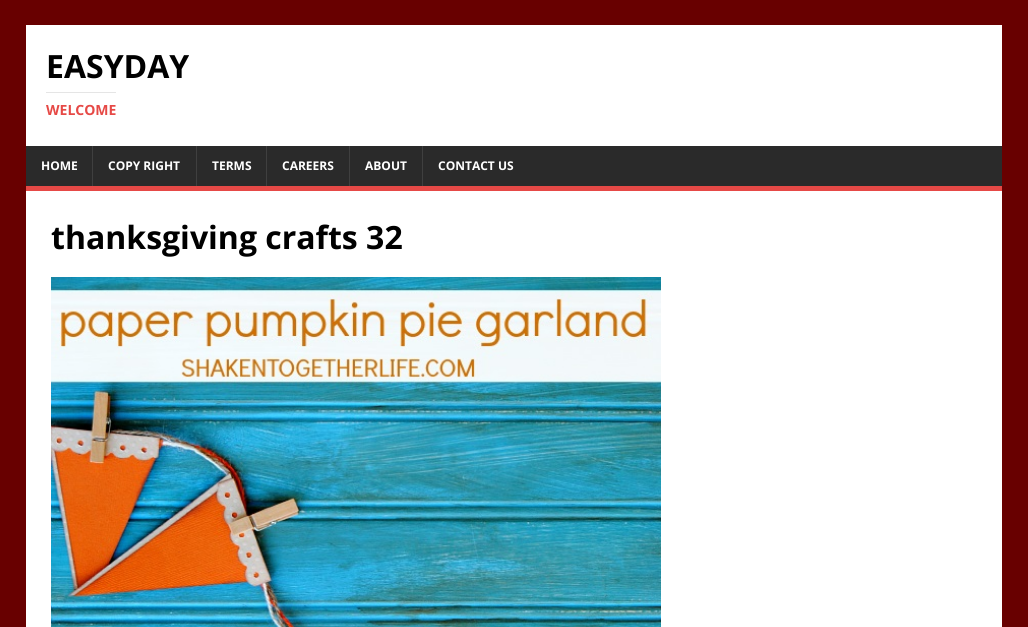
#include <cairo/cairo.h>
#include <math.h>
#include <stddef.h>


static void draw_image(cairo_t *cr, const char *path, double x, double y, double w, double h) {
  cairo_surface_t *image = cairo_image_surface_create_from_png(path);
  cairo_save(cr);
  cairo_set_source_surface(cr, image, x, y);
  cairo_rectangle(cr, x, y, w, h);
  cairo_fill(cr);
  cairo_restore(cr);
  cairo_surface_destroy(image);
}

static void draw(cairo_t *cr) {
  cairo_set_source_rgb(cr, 104 / 255.0, 0, 0);
  cairo_paint(cr);
  cairo_set_source_rgb(cr, 1, 1, 1);
  cairo_rectangle(cr, 26, 25, 976, 121);
  cairo_fill(cr);
  cairo_set_source_rgb(cr, 229 / 255.0, 229 / 255.0, 229 / 255.0);
  cairo_rectangle(cr, 46, 92, 70, 1);
  cairo_fill(cr);
  cairo_set_source_rgb(cr, 42 / 255.0, 42 / 255.0, 42 / 255.0);
  cairo_rectangle(cr, 26, 146, 976, 40);
  cairo_fill(cr);
  cairo_set_source_rgb(cr, 230 / 255.0, 73 / 255.0, 70 / 255.0);
  cairo_rectangle(cr, 26, 186, 976, 5);
  cairo_fill(cr);
  cairo_set_source_rgb(cr, 63 / 255.0, 63 / 255.0, 63 / 255.0);
  cairo_rectangle(cr, 92, 146, 1, 40);
  cairo_fill(cr);
  cairo_rectangle(cr, 196, 146, 1, 40);
  cairo_fill(cr);
  cairo_rectangle(cr, 266, 146, 1, 40);
  cairo_fill(cr);
  cairo_rectangle(cr, 349, 146, 1, 40);
  cairo_fill(cr);
  cairo_rectangle(cr, 422, 146, 1, 40);
  cairo_fill(cr);
  cairo_set_source_rgb(cr, 1, 1, 1);
  cairo_rectangle(cr, 26, 191, 976, 436);
  cairo_fill(cr);
  draw_image(cr, "images/1.png", 51, 277, 610, 350);
  cairo_select_font_face(cr, "Open Sans", CAIRO_FONT_SLANT_NORMAL, CAIRO_FONT_WEIGHT_BOLD);
  cairo_set_font_size(cr, 32);
  cairo_set_source_rgb(cr, 0, 0, 0);
  cairo_move_to(cr, 46, 78);
  cairo_show_text(cr, "EASYDAY");
  cairo_set_font_size(cr, 14);
  cairo_set_source_rgb(cr, 230 / 255.0, 73 / 255.0, 70 / 255.0);
  cairo_move_to(cr, 46, 115);
  cairo_show_text(cr, "WELCOME");
  cairo_set_font_size(cr, 12);
  cairo_set_source_rgb(cr, 1, 1, 1);
  cairo_move_to(cr, 41, 170);
  cairo_show_text(cr, "HOME");
  cairo_move_to(cr, 108, 170);
  cairo_show_text(cr, "COPY RIGHT");
  cairo_move_to(cr, 212, 170);
  cairo_show_text(cr, "TERMS");
  cairo_move_to(cr, 282, 170);
  cairo_show_text(cr, "CAREERS");
  cairo_move_to(cr, 365, 170);
  cairo_show_text(cr, "ABOUT");
  cairo_move_to(cr, 438, 170);
  cairo_show_text(cr, "CONTACT US");
  cairo_set_font_size(cr, 32);
  cairo_set_source_rgb(cr, 0, 0, 0);
  cairo_move_to(cr, 51, 249);
  cairo_show_text(cr, "thanksgiving crafts 32");
}

int main(void) {
  cairo_surface_t *surface = cairo_image_surface_create(CAIRO_FORMAT_RGB24, 1028, 627);
  cairo_t *cr = cairo_create(surface);
  cairo_font_options_t *options = cairo_font_options_create();
  cairo_font_options_set_hint_metrics(options, CAIRO_HINT_METRICS_OFF);
  cairo_font_options_set_hint_style(options, CAIRO_HINT_STYLE_NONE);
  cairo_set_font_options(cr, options);
  cairo_set_miter_limit(cr, 4);
  draw(cr);
  cairo_surface_write_to_png(surface, "out.png");
  cairo_font_options_destroy(options);
  cairo_destroy(cr);
  cairo_surface_destroy(surface);
  return 0;
}
